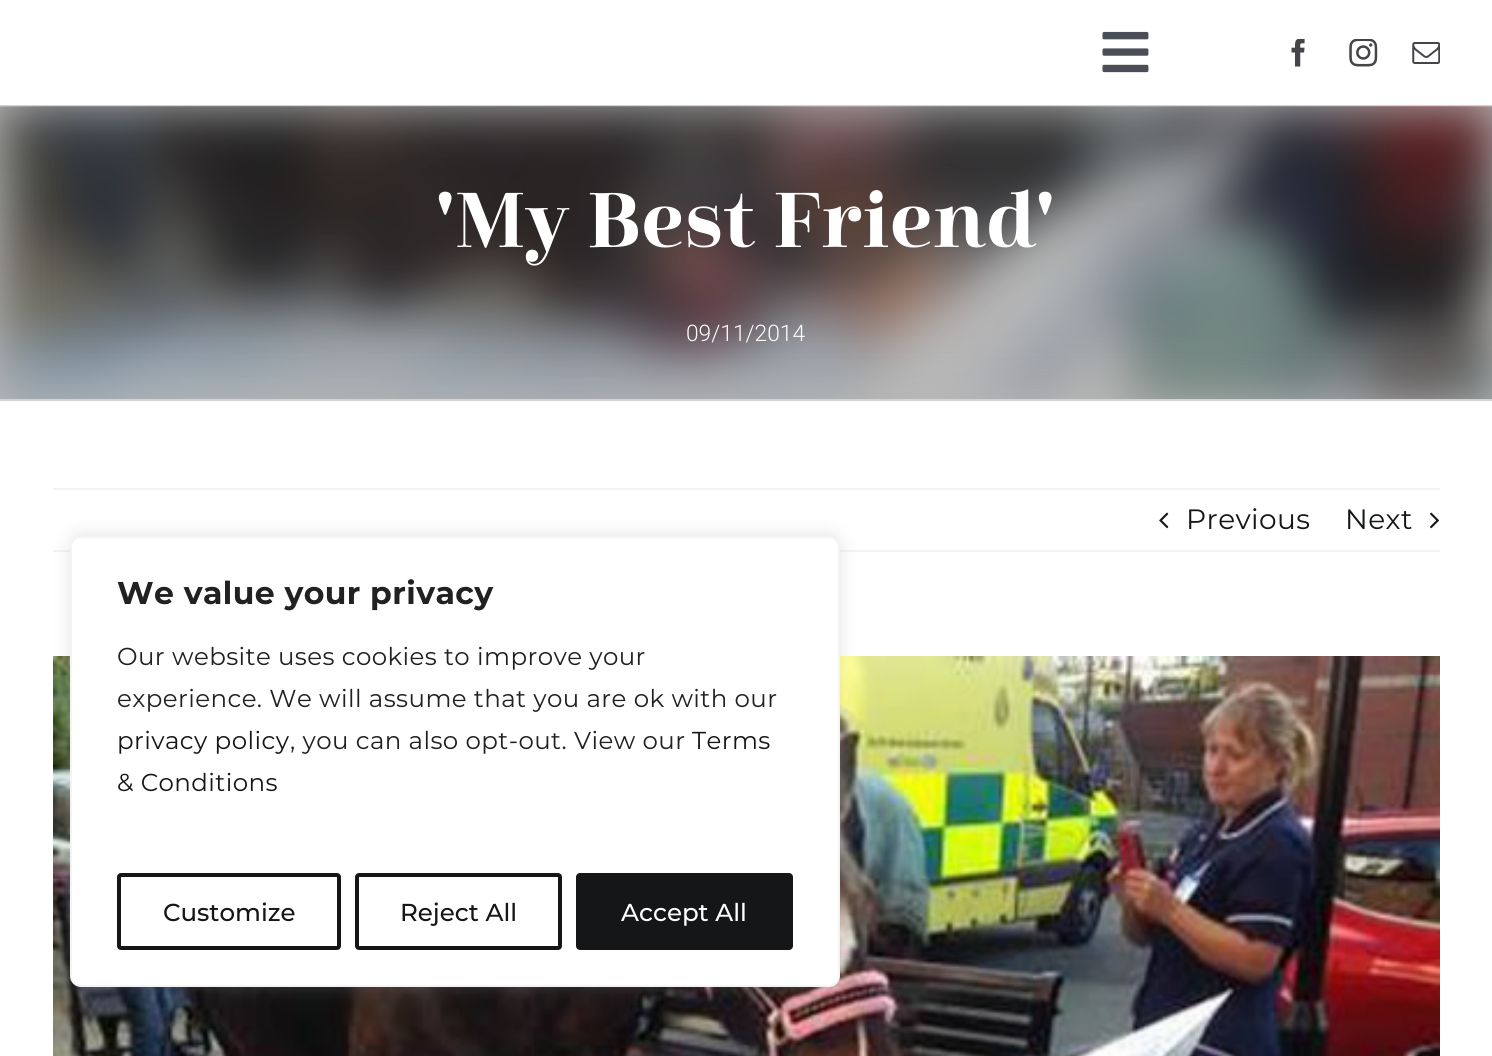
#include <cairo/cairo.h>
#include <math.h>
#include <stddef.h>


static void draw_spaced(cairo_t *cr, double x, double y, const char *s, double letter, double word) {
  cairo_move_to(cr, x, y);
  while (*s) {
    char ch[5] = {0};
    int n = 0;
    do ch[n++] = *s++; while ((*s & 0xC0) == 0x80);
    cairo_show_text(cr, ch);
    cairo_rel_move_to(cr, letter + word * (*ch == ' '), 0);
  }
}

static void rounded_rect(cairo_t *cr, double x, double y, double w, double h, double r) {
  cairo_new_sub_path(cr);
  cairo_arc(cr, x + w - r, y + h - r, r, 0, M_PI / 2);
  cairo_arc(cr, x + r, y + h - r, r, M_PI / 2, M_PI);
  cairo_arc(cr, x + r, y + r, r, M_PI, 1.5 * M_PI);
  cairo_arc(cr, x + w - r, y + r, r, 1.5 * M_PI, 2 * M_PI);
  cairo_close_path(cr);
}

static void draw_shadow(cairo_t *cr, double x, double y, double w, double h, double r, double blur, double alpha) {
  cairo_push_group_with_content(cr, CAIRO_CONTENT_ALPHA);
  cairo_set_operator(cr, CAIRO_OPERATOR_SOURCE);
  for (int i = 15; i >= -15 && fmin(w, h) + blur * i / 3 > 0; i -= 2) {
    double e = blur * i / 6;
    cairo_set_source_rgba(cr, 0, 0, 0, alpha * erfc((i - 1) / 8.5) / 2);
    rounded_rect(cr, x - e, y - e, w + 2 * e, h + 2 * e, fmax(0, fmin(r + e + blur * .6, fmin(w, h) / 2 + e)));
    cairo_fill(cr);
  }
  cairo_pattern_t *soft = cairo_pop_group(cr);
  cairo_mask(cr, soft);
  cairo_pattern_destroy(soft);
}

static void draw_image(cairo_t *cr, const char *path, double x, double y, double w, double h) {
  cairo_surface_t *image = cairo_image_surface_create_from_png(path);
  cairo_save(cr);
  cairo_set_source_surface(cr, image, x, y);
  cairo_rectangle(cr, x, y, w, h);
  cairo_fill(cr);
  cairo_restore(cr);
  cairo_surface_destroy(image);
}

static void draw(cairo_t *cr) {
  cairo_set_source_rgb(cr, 1, 1, 1);
  cairo_paint(cr);
  cairo_set_source_rgb(cr, 184 / 255.0, 184 / 255.0, 184 / 255.0);
  cairo_rectangle(cr, 0, 107, 1492, 292);
  cairo_fill(cr);
  draw_image(cr, "images/1.png", 1102, 31, 47, 42);
  draw_image(cr, "images/2.png", 1291, 39, 14, 28);
  draw_image(cr, "images/3.png", 1349, 39, 29, 28);
  draw_image(cr, "images/4.png", 1412, 42, 28, 22);
  cairo_set_source_rgb(cr, 210 / 255.0, 211 / 255.0, 212 / 255.0);
  cairo_rectangle(cr, 0, 105, 1492, 2);
  cairo_fill(cr);
  cairo_rectangle(cr, 0, 399, 1492, 2);
  cairo_fill(cr);
  draw_image(cr, "images/5.png", 0, 106, 1492, 293);
  cairo_set_source_rgb(cr, 242 / 255.0, 243 / 255.0, 245 / 255.0);
  cairo_rectangle(cr, 53, 488, 1387, 2);
  cairo_fill(cr);
  cairo_rectangle(cr, 53, 550, 1387, 2);
  cairo_fill(cr);
  draw_image(cr, "images/6.png", 1159, 512, 10, 17);
  draw_image(cr, "images/7.png", 1430, 512, 9, 17);
  draw_image(cr, "images/8.png", 53, 656, 1387, 400);
  cairo_set_source_rgb(cr, 172 / 255.0, 171 / 255.0, 171 / 255.0);
  draw_shadow(cr, 70, 534, 770, 451, 11, 9, 0.3);
  cairo_set_source_rgb(cr, 1, 1, 1);
  rounded_rect(cr, 71, 537, 768, 449, 10);
  cairo_fill_preserve(cr);
  cairo_set_source_rgb(cr, 244 / 255.0, 244 / 255.0, 244 / 255.0);
  cairo_stroke(cr);
  rounded_rect(cr, 119, 875, 220, 73, 2);
  cairo_set_source_rgb(cr, 20 / 255.0, 22 / 255.0, 23 / 255.0);
  cairo_set_line_width(cr, 4);
  cairo_stroke(cr);
  rounded_rect(cr, 357, 875, 203, 73, 2);
  cairo_stroke(cr);
  rounded_rect(cr, 578, 875, 213, 73, 2);
  cairo_fill_preserve(cr);
  cairo_stroke(cr);
  cairo_select_font_face(cr, "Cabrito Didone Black", CAIRO_FONT_SLANT_NORMAL, CAIRO_FONT_WEIGHT_NORMAL);
  cairo_set_font_size(cr, 77);
  cairo_set_source_rgb(cr, 1, 1, 1);
  cairo_move_to(cr, 436, 247);
  cairo_show_text(cr, "'My Best Friend'");
  cairo_select_font_face(cr, "Roboto Light", CAIRO_FONT_SLANT_NORMAL, CAIRO_FONT_WEIGHT_NORMAL);
  cairo_set_font_size(cr, 22.75);
  cairo_move_to(cr, 686, 341);
  cairo_show_text(cr, "09/11/2014");
  cairo_select_font_face(cr, "Montserrat", CAIRO_FONT_SLANT_NORMAL, CAIRO_FONT_WEIGHT_NORMAL);
  cairo_set_font_size(cr, 28);
  cairo_set_source_rgb(cr, 20 / 255.0, 22 / 255.0, 23 / 255.0);
  draw_spaced(cr, 1186, 529, "Previous", 0.42, 0);
  draw_spaced(cr, 1345, 529, "Next", 0.42, 0);
  cairo_select_font_face(cr, "Montserrat", CAIRO_FONT_SLANT_NORMAL, CAIRO_FONT_WEIGHT_BOLD);
  cairo_set_font_size(cr, 31.5);
  cairo_set_source_rgb(cr, 33 / 255.0, 33 / 255.0, 33 / 255.0);
  draw_spaced(cr, 117, 604, "We value your privacy", 0.42, 0);
  cairo_select_font_face(cr, "Montserrat", CAIRO_FONT_SLANT_NORMAL, CAIRO_FONT_WEIGHT_NORMAL);
  cairo_set_font_size(cr, 24.5);
  draw_spaced(cr, 117, 665, "Our website uses cookies to improve your", 0.42, 0);
  draw_spaced(cr, 117, 707, "experience. We will assume that you are ok with our", 0.42, 0);
  cairo_set_source_rgb(cr, 20 / 255.0, 22 / 255.0, 23 / 255.0);
  draw_spaced(cr, 117, 749, "privacy policy", 0.42, 0);
  cairo_set_source_rgb(cr, 33 / 255.0, 33 / 255.0, 33 / 255.0);
  draw_spaced(cr, 290, 749, ", you can also opt-out. View our", 0.42, 0);
  cairo_set_source_rgb(cr, 20 / 255.0, 22 / 255.0, 23 / 255.0);
  draw_spaced(cr, 692, 749, "Terms", 0.42, 0);
  draw_spaced(cr, 117, 791, "& Conditions", 0.42, 0);
  cairo_select_font_face(cr, "Montserrat Medium", CAIRO_FONT_SLANT_NORMAL, CAIRO_FONT_WEIGHT_NORMAL);
  cairo_move_to(cr, 163, 921);
  cairo_show_text(cr, "Customize");
  cairo_move_to(cr, 400, 921);
  cairo_show_text(cr, "Reject All");
  cairo_set_source_rgb(cr, 1, 1, 1);
  cairo_move_to(cr, 621, 921);
  cairo_show_text(cr, "Accept All");
}

int main(void) {
  cairo_surface_t *surface = cairo_image_surface_create(CAIRO_FORMAT_RGB24, 1492, 1056);
  cairo_t *cr = cairo_create(surface);
  cairo_font_options_t *options = cairo_font_options_create();
  cairo_font_options_set_hint_metrics(options, CAIRO_HINT_METRICS_OFF);
  cairo_font_options_set_hint_style(options, CAIRO_HINT_STYLE_NONE);
  cairo_set_font_options(cr, options);
  cairo_set_miter_limit(cr, 4);
  draw(cr);
  cairo_surface_write_to_png(surface, "out.png");
  cairo_font_options_destroy(options);
  cairo_destroy(cr);
  cairo_surface_destroy(surface);
  return 0;
}
